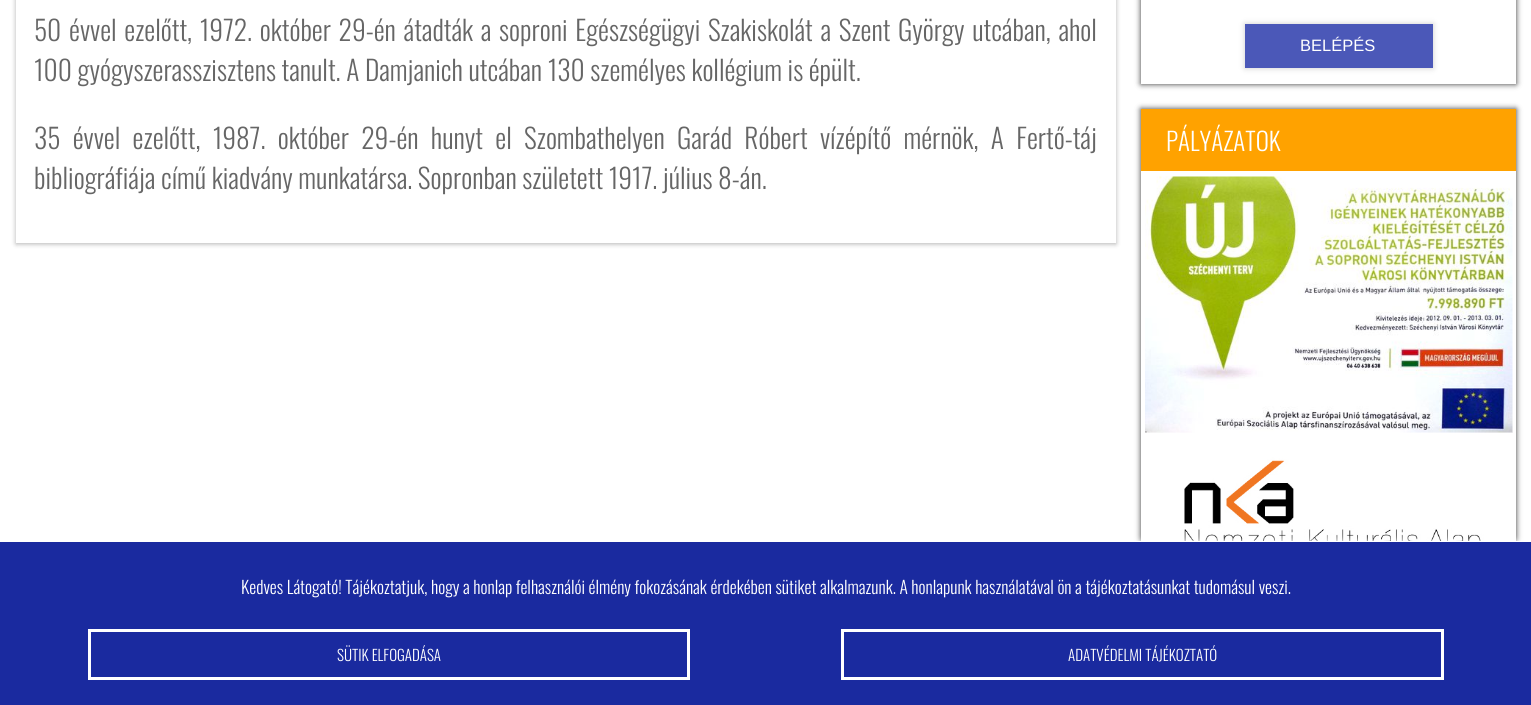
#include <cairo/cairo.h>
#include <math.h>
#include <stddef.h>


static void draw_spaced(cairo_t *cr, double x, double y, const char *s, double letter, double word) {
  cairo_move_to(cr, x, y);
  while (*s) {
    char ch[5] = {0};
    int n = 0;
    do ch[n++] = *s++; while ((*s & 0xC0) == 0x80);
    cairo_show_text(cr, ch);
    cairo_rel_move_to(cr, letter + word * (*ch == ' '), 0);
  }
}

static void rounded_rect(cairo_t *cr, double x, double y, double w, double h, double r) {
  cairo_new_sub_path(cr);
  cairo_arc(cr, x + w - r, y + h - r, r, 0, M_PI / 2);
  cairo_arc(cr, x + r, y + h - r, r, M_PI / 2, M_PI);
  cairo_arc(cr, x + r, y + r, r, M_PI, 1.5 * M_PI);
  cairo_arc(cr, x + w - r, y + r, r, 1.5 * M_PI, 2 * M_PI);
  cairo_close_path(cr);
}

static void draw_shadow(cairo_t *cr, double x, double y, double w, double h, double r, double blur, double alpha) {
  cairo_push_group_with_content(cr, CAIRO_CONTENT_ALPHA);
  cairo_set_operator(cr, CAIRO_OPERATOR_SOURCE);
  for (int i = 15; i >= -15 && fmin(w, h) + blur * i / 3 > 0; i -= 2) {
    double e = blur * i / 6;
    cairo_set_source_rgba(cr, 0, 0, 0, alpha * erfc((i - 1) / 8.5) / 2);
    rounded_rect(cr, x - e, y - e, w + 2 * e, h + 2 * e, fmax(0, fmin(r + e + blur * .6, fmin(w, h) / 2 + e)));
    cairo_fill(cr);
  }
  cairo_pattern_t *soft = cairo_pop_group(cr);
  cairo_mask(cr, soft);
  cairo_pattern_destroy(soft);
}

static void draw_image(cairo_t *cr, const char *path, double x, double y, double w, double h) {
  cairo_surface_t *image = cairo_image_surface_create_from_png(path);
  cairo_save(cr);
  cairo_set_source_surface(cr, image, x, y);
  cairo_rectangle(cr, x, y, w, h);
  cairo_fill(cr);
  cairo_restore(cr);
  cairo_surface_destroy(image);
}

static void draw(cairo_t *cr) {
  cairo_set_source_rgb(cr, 1, 1, 1);
  cairo_paint(cr);
  cairo_save(cr);
  cairo_set_fill_rule(cr, CAIRO_FILL_RULE_EVEN_ODD);
  cairo_new_path(cr);
  cairo_move_to(cr, 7, 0);
  cairo_line_to(cr, 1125, 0);
  cairo_line_to(cr, 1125, 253);
  cairo_line_to(cr, 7, 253);
  cairo_close_path(cr);
  cairo_move_to(cr, 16, -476);
  cairo_line_to(cr, 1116, -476);
  cairo_line_to(cr, 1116, 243);
  cairo_line_to(cr, 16, 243);
  cairo_close_path(cr);
  cairo_clip(cr);
  cairo_set_source_rgb(cr, 0, 0, 0);
  draw_shadow(cr, 16, -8, 1100, 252, 0, 2.5, 0.3);
  cairo_restore(cr);
  cairo_save(cr);
  cairo_set_fill_rule(cr, CAIRO_FILL_RULE_EVEN_ODD);
  cairo_new_path(cr);
  cairo_move_to(cr, 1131, 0);
  cairo_line_to(cr, 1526, 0);
  cairo_line_to(cr, 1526, 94);
  cairo_line_to(cr, 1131, 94);
  cairo_close_path(cr);
  cairo_move_to(cr, 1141, -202);
  cairo_line_to(cr, 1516, -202);
  cairo_line_to(cr, 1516, 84);
  cairo_line_to(cr, 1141, 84);
  cairo_close_path(cr);
  cairo_clip(cr);
  cairo_set_source_rgb(cr, 51 / 255.0, 51 / 255.0, 51 / 255.0);
  draw_shadow(cr, 1141, -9, 375, 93, 0, 3, 1);
  cairo_restore(cr);
  cairo_set_source_rgb(cr, 204 / 255.0, 204 / 255.0, 204 / 255.0);
  draw_shadow(cr, 1245, 24, 188, 44, 0, 3, 1);
  cairo_set_source_rgb(cr, 75 / 255.0, 88 / 255.0, 184 / 255.0);
  cairo_rectangle(cr, 1245, 24, 188, 44);
  cairo_fill(cr);
  cairo_save(cr);
  cairo_set_fill_rule(cr, CAIRO_FILL_RULE_EVEN_ODD);
  cairo_new_path(cr);
  cairo_move_to(cr, 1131, 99);
  cairo_line_to(cr, 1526, 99);
  cairo_line_to(cr, 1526, 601);
  cairo_line_to(cr, 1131, 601);
  cairo_close_path(cr);
  cairo_move_to(cr, 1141, 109);
  cairo_line_to(cr, 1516, 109);
  cairo_line_to(cr, 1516, 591);
  cairo_line_to(cr, 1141, 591);
  cairo_close_path(cr);
  cairo_clip(cr);
  cairo_set_source_rgb(cr, 51 / 255.0, 51 / 255.0, 51 / 255.0);
  draw_shadow(cr, 1141, 109, 375, 482, 0, 3, 1);
  cairo_restore(cr);
  cairo_set_source_rgb(cr, 1, 162 / 255.0, 0);
  cairo_rectangle(cr, 1141, 109, 375, 62);
  cairo_fill(cr);
  draw_image(cr, "images/1.png", 1145, 176, 368, 257);
  draw_image(cr, "images/2.png", 1145, 432, 367, 109);
  cairo_set_source_rgb(cr, 1, 1, 1);
  draw_shadow(cr, 6, 541, 1519, 152, 0, 3, 1);
  cairo_set_source_rgb(cr, 26 / 255.0, 42 / 255.0, 159 / 255.0);
  cairo_rectangle(cr, 0, 542, 1531, 163);
  cairo_fill(cr);
  cairo_set_source_rgb(cr, 1, 1, 1);
  cairo_rectangle(cr, 1135, 541, 387, 1);
  cairo_fill(cr);
  cairo_rectangle(cr, 89.5, 630.5, 599, 48);
  cairo_set_line_width(cr, 3);
  cairo_stroke(cr);
  cairo_rectangle(cr, 842.5, 630.5, 600, 48);
  cairo_stroke(cr);
  cairo_select_font_face(cr, "Oswald Light", CAIRO_FONT_SLANT_NORMAL, CAIRO_FONT_WEIGHT_NORMAL);
  cairo_set_font_size(cr, 27.5);
  cairo_set_source_rgb(cr, 102 / 255.0, 102 / 255.0, 102 / 255.0);
  draw_spaced(cr, 34, 41, "50 évvel ezelőtt, 1972. október 29-én átadták a soproni Egészségügyi Szakiskolát a Szent György utcában, ahol", 0, 2.1);
  cairo_move_to(cr, 34, 81);
  cairo_show_text(cr, "100 gyógyszerasszisztens tanult. A Damjanich utcában 130 személyes kollégium is épült.");
  draw_spaced(cr, 34, 149, "35 évvel ezelőtt, 1987. október 29-én hunyt el Szombathelyen Garád Róbert vízépítő mérnök, A Fertő-táj", 0, 6.75);
  cairo_move_to(cr, 34, 189);
  cairo_show_text(cr, "bibliográfiája című kiadvány munkatársa. Sopronban született 1917. július 8-án.");
  cairo_select_font_face(cr, "Liberation Sans", CAIRO_FONT_SLANT_NORMAL, CAIRO_FONT_WEIGHT_NORMAL);
  cairo_set_font_size(cr, 16.5);
  cairo_set_source_rgb(cr, 1, 1, 1);
  cairo_move_to(cr, 1300, 51);
  cairo_show_text(cr, "BELÉPÉS");
  cairo_select_font_face(cr, "Oswald Light", CAIRO_FONT_SLANT_NORMAL, CAIRO_FONT_WEIGHT_NORMAL);
  cairo_set_font_size(cr, 25);
  cairo_move_to(cr, 1166, 151);
  cairo_show_text(cr, "PÁLYÁZATOK");
  cairo_set_font_size(cr, 17.5);
  cairo_move_to(cr, 241, 594);
  cairo_show_text(cr, "Kedves Látogató! Tájékoztatjuk, hogy a honlap felhasználói élmény fokozásának érdekében sütiket alkalmazunk. A honlapunk használatával ön a tájékoztatásunkat tudomásul veszi.");
  cairo_set_font_size(cr, 15);
  cairo_move_to(cr, 337, 661);
  cairo_show_text(cr, "SÜTIK ELFOGADÁSA");
  cairo_move_to(cr, 1068, 661);
  cairo_show_text(cr, "ADATVÉDELMI TÁJÉKOZTATÓ");
}

int main(void) {
  cairo_surface_t *surface = cairo_image_surface_create(CAIRO_FORMAT_RGB24, 1531, 705);
  cairo_t *cr = cairo_create(surface);
  cairo_font_options_t *options = cairo_font_options_create();
  cairo_font_options_set_hint_metrics(options, CAIRO_HINT_METRICS_OFF);
  cairo_font_options_set_hint_style(options, CAIRO_HINT_STYLE_NONE);
  cairo_set_font_options(cr, options);
  cairo_set_miter_limit(cr, 4);
  draw(cr);
  cairo_surface_write_to_png(surface, "out.png");
  cairo_font_options_destroy(options);
  cairo_destroy(cr);
  cairo_surface_destroy(surface);
  return 0;
}
